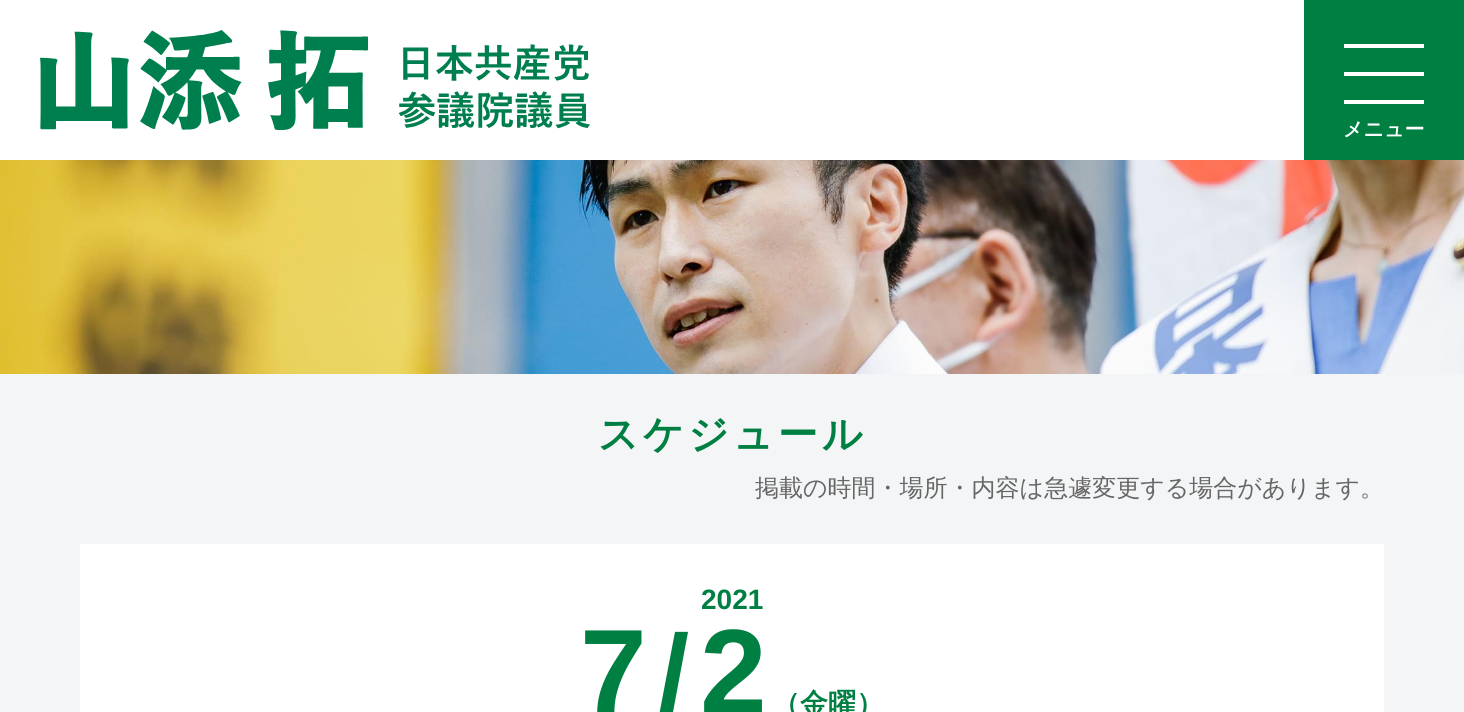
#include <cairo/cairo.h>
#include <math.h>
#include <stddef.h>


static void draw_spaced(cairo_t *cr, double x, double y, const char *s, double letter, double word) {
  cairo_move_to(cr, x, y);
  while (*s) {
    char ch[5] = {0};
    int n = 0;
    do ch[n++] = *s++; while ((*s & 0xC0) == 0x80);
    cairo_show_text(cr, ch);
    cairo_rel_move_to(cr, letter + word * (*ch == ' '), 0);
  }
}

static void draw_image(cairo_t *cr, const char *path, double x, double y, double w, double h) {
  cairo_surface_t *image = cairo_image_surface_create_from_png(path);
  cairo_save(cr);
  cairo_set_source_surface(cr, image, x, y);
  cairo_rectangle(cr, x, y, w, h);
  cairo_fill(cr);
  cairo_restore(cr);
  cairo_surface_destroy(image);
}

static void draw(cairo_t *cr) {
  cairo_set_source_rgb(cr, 244 / 255.0, 245 / 255.0, 246 / 255.0);
  cairo_paint(cr);
  cairo_set_source_rgb(cr, 1, 1, 1);
  cairo_rectangle(cr, 0, 0, 1304, 160);
  cairo_fill(cr);
  draw_image(cr, "images/1.png", 40, 30, 550, 100);
  cairo_set_source_rgb(cr, 0, 127 / 255.0, 66 / 255.0);
  cairo_rectangle(cr, 1304, 0, 160, 160);
  cairo_fill(cr);
  cairo_set_source_rgb(cr, 1, 1, 1);
  cairo_rectangle(cr, 1344, 44, 80, 4);
  cairo_fill(cr);
  cairo_rectangle(cr, 1344, 72, 80, 4);
  cairo_fill(cr);
  cairo_rectangle(cr, 1344, 100, 80, 4);
  cairo_fill(cr);
  draw_image(cr, "images/2.png", 0, 160, 1464, 214);
  cairo_rectangle(cr, 80, 544, 1304, 168);
  cairo_fill(cr);
  cairo_select_font_face(cr, "WenQuanYi Zen Hei", CAIRO_FONT_SLANT_NORMAL, CAIRO_FONT_WEIGHT_BOLD);
  cairo_set_font_size(cr, 20);
  cairo_move_to(cr, 1343, 136);
  cairo_show_text(cr, "メニュー");
  cairo_set_font_size(cr, 40);
  cairo_set_source_rgb(cr, 0, 127 / 255.0, 66 / 255.0);
  draw_spaced(cr, 598, 448, "スケジュール", 4, 0);
  cairo_select_font_face(cr, "WenQuanYi Zen Hei Medium", CAIRO_FONT_SLANT_NORMAL, CAIRO_FONT_WEIGHT_NORMAL);
  cairo_set_font_size(cr, 24);
  cairo_set_source_rgb(cr, 102 / 255.0, 102 / 255.0, 102 / 255.0);
  cairo_move_to(cr, 755, 496);
  cairo_show_text(cr, "掲載の時間・場所・内容は急遽変更する場合があります。");
  cairo_select_font_face(cr, "Liberation Sans", CAIRO_FONT_SLANT_NORMAL, CAIRO_FONT_WEIGHT_BOLD);
  cairo_set_font_size(cr, 28);
  cairo_set_source_rgb(cr, 0, 127 / 255.0, 66 / 255.0);
  cairo_move_to(cr, 701, 609);
  cairo_show_text(cr, "2021");
  cairo_set_font_size(cr, 120);
  cairo_move_to(cr, 580, 713);
  cairo_show_text(cr, "7");
  cairo_set_font_size(cr, 112);
  cairo_move_to(cr, 658, 713);
  cairo_show_text(cr, "/");
  cairo_set_font_size(cr, 120);
  cairo_move_to(cr, 700, 713);
  cairo_show_text(cr, "2");
  cairo_select_font_face(cr, "WenQuanYi Zen Hei", CAIRO_FONT_SLANT_NORMAL, CAIRO_FONT_WEIGHT_BOLD);
  cairo_set_font_size(cr, 28);
  cairo_move_to(cr, 772, 713);
  cairo_show_text(cr, "（金曜）");
}

int main(void) {
  cairo_surface_t *surface = cairo_image_surface_create(CAIRO_FORMAT_RGB24, 1464, 712);
  cairo_t *cr = cairo_create(surface);
  cairo_font_options_t *options = cairo_font_options_create();
  cairo_font_options_set_hint_metrics(options, CAIRO_HINT_METRICS_OFF);
  cairo_font_options_set_hint_style(options, CAIRO_HINT_STYLE_NONE);
  cairo_set_font_options(cr, options);
  cairo_set_miter_limit(cr, 4);
  draw(cr);
  cairo_surface_write_to_png(surface, "out.png");
  cairo_font_options_destroy(options);
  cairo_destroy(cr);
  cairo_surface_destroy(surface);
  return 0;
}
